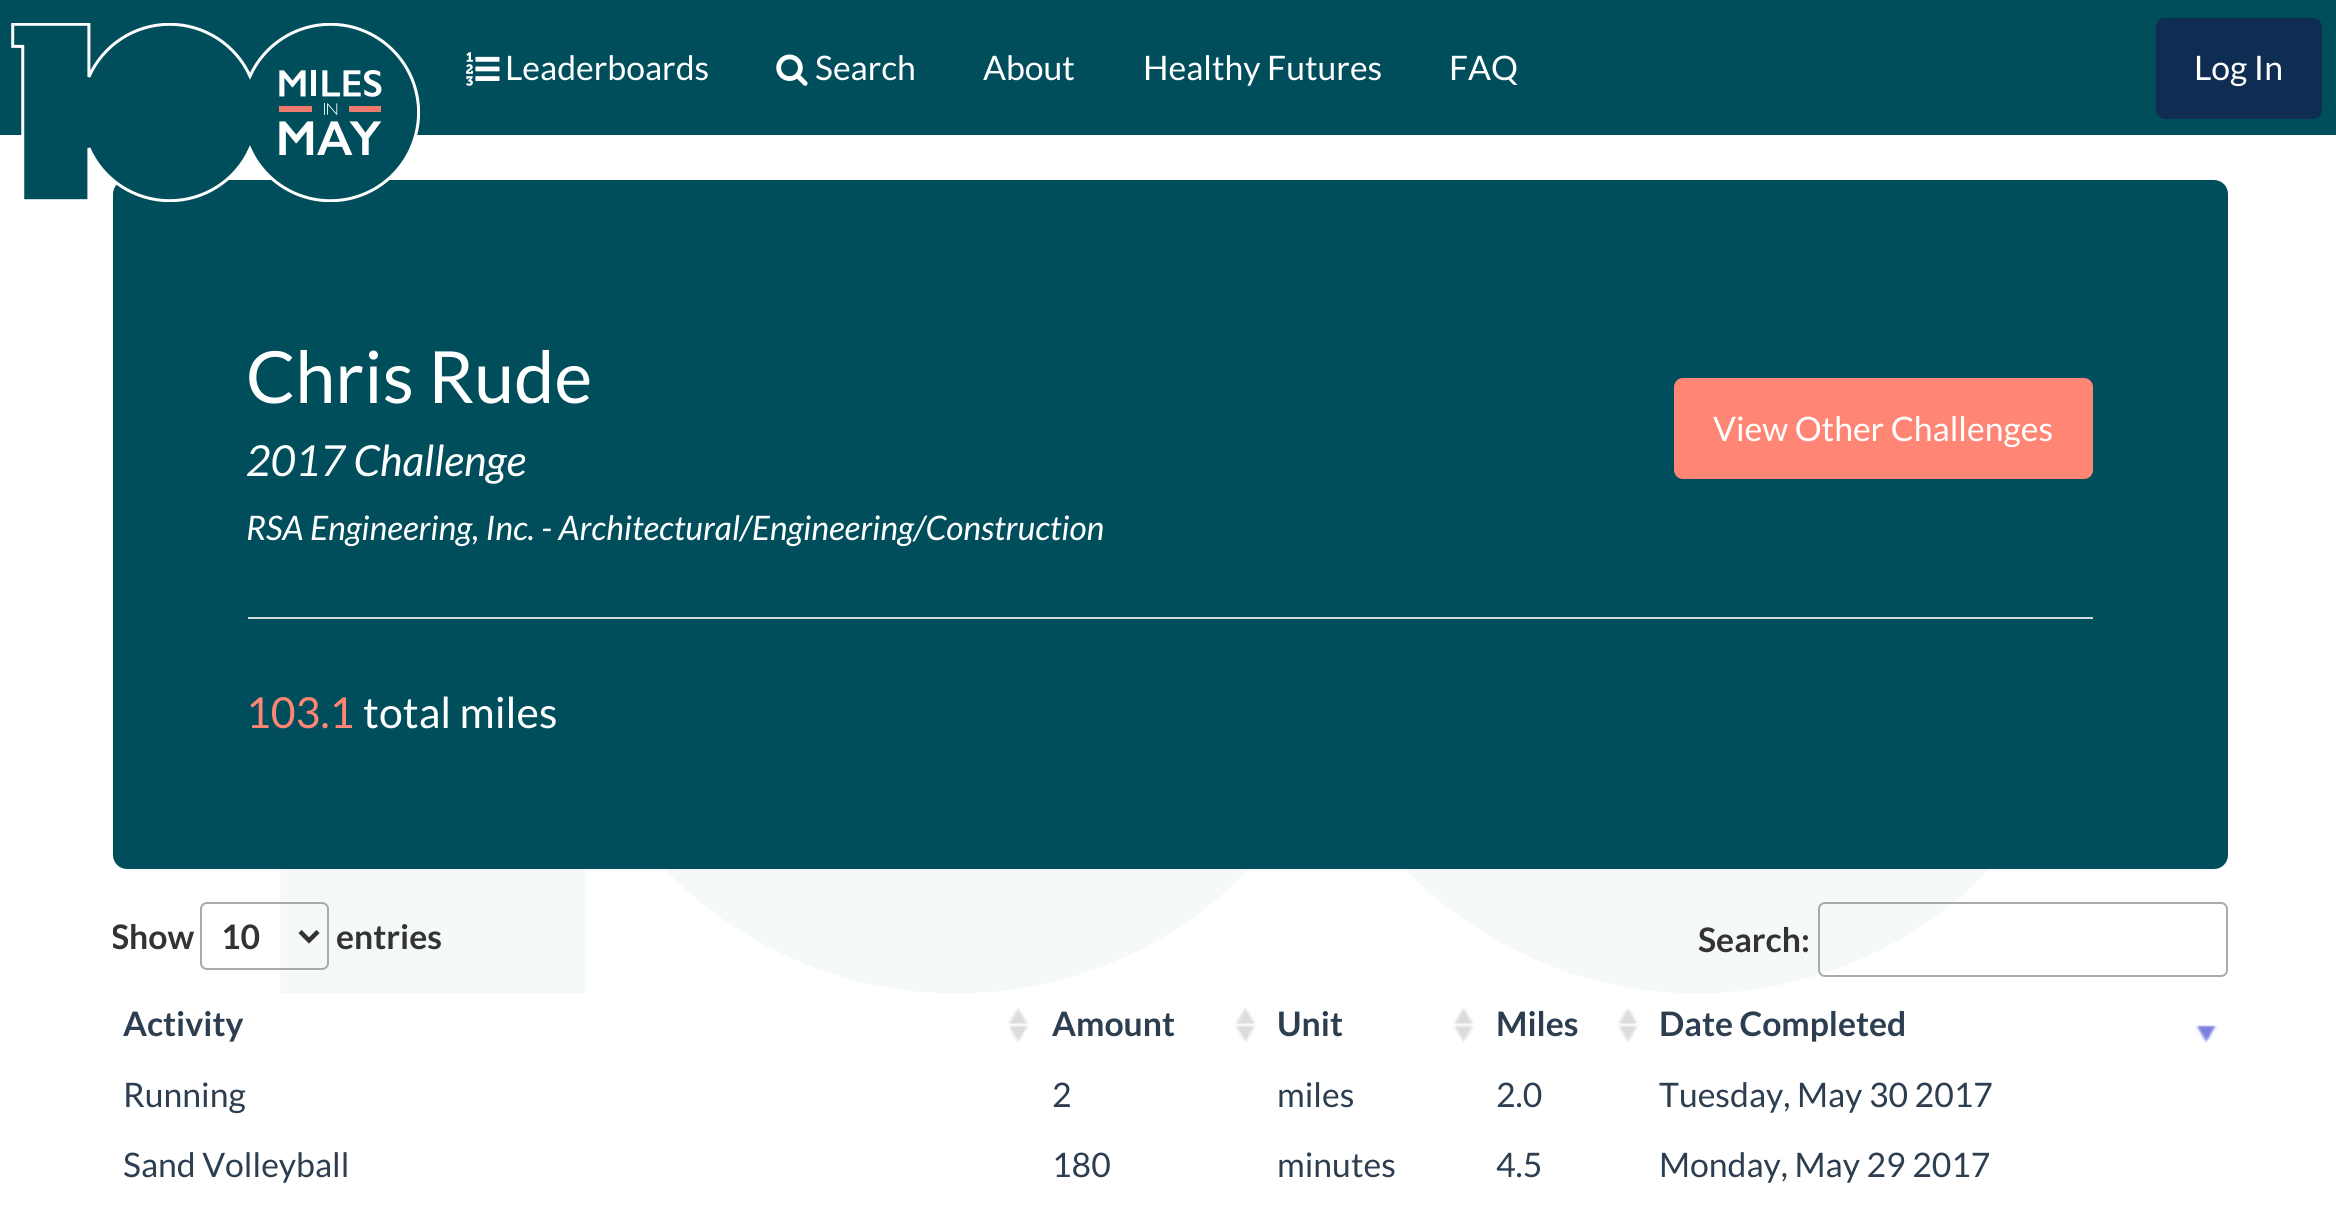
#include <cairo/cairo.h>
#include <math.h>
#include <stddef.h>


static void rounded_rect(cairo_t *cr, double x, double y, double w, double h, double r) {
  cairo_new_sub_path(cr);
  cairo_arc(cr, x + w - r, y + h - r, r, 0, M_PI / 2);
  cairo_arc(cr, x + r, y + h - r, r, M_PI / 2, M_PI);
  cairo_arc(cr, x + r, y + r, r, M_PI, 1.5 * M_PI);
  cairo_arc(cr, x + w - r, y + r, r, 1.5 * M_PI, 2 * M_PI);
  cairo_close_path(cr);
}

static void draw_image(cairo_t *cr, const char *path, double x, double y, double w, double h) {
  cairo_surface_t *image = cairo_image_surface_create_from_png(path);
  cairo_save(cr);
  cairo_set_source_surface(cr, image, x, y);
  cairo_rectangle(cr, x, y, w, h);
  cairo_fill(cr);
  cairo_restore(cr);
  cairo_surface_destroy(image);
}

static void draw(cairo_t *cr) {
  cairo_set_source_rgb(cr, 1, 1, 1);
  cairo_paint(cr);
  cairo_set_source_rgb(cr, 0, 78 / 255.0, 92 / 255.0);
  cairo_rectangle(cr, 0, 0, 2336, 135);
  cairo_fill(cr);
  rounded_rect(cr, 113, 180, 2115, 689, 14);
  cairo_fill(cr);
  draw_image(cr, "images/1.png", 11, 23, 409, 179);
  draw_image(cr, "images/2.png", 466, 52, 34, 34);
  draw_image(cr, "images/3.png", 776, 54, 32, 32);
  cairo_set_source_rgb(cr, 15 / 255.0, 44 / 255.0, 82 / 255.0);
  rounded_rect(cr, 2158.5, 20.5, 161, 96, 6.5);
  cairo_fill_preserve(cr);
  cairo_set_line_width(cr, 5);
  cairo_stroke(cr);
  cairo_set_source_rgb(cr, 1, 134 / 255.0, 116 / 255.0);
  rounded_rect(cr, 1676.5, 380.5, 414, 96, 6.5);
  cairo_fill_preserve(cr);
  cairo_stroke(cr);
  cairo_set_source_rgb(cr, 207 / 255.0, 217 / 255.0, 219 / 255.0);
  cairo_rectangle(cr, 248, 617, 1845, 2);
  cairo_fill(cr);
  draw_image(cr, "images/4.png", 280, 869, 1710, 125);
  rounded_rect(cr, 201, 903, 127, 66, 6);
  cairo_set_source_rgb(cr, 170 / 255.0, 170 / 255.0, 170 / 255.0);
  cairo_set_line_width(cr, 2);
  cairo_stroke(cr);
  cairo_new_path(cr);
  cairo_move_to(cr, 300, 931.5);
  cairo_line_to(cr, 309, 940.5);
  cairo_line_to(cr, 318, 931.5);
  cairo_set_source_rgb(cr, 51 / 255.0, 51 / 255.0, 51 / 255.0);
  cairo_set_line_width(cr, 4.5);
  cairo_stroke(cr);
  rounded_rect(cr, 1819, 903, 408, 73, 6);
  cairo_set_source_rgb(cr, 170 / 255.0, 170 / 255.0, 170 / 255.0);
  cairo_set_line_width(cr, 2);
  cairo_stroke(cr);
  draw_image(cr, "images/5.png", 1008, 1007, 21, 35);
  draw_image(cr, "images/6.png", 1235, 1007, 21, 36);
  draw_image(cr, "images/7.png", 1453, 1007, 21, 36);
  draw_image(cr, "images/8.png", 1617, 1007, 22, 35);
  draw_image(cr, "images/9.png", 2195, 1025, 22, 18);
  cairo_select_font_face(cr, "Lato", CAIRO_FONT_SLANT_NORMAL, CAIRO_FONT_WEIGHT_NORMAL);
  cairo_set_font_size(cr, 33.75);
  cairo_set_source_rgb(cr, 1, 1, 1);
  cairo_move_to(cr, 505, 80);
  cairo_show_text(cr, "Leaderboards");
  cairo_move_to(cr, 815, 80);
  cairo_show_text(cr, "Search");
  cairo_move_to(cr, 983, 80);
  cairo_show_text(cr, "About");
  cairo_move_to(cr, 1143, 80);
  cairo_show_text(cr, "Healthy Futures");
  cairo_move_to(cr, 1449, 80);
  cairo_show_text(cr, "FAQ");
  cairo_move_to(cr, 2194, 80);
  cairo_show_text(cr, "Log In");
  cairo_set_font_size(cr, 72);
  cairo_move_to(cr, 246, 403);
  cairo_show_text(cr, "Chris Rude");
  cairo_select_font_face(cr, "Lato", CAIRO_FONT_SLANT_ITALIC, CAIRO_FONT_WEIGHT_NORMAL);
  cairo_set_font_size(cr, 42.75);
  cairo_move_to(cr, 246, 476);
  cairo_show_text(cr, "2017 Challenge");
  cairo_set_font_size(cr, 33.75);
  cairo_move_to(cr, 246, 540);
  cairo_show_text(cr, "RSA Engineering, Inc. - Architectural/Engineering/Construction");
  cairo_select_font_face(cr, "Lato", CAIRO_FONT_SLANT_NORMAL, CAIRO_FONT_WEIGHT_NORMAL);
  cairo_move_to(cr, 1713, 441);
  cairo_show_text(cr, "View Other Challenges");
  cairo_set_font_size(cr, 42.75);
  cairo_set_source_rgb(cr, 1, 134 / 255.0, 116 / 255.0);
  cairo_move_to(cr, 246, 728);
  cairo_show_text(cr, "103.1");
  cairo_set_source_rgb(cr, 1, 1, 1);
  cairo_move_to(cr, 363, 728);
  cairo_show_text(cr, "total miles");
  cairo_save(cr);
  cairo_rectangle(cr, 113, 902, 2115, 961);
  cairo_clip(cr);
  cairo_select_font_face(cr, "Lato", CAIRO_FONT_SLANT_NORMAL, CAIRO_FONT_WEIGHT_BOLD);
  cairo_set_font_size(cr, 33.75);
  cairo_set_source_rgb(cr, 51 / 255.0, 51 / 255.0, 51 / 255.0);
  cairo_move_to(cr, 111, 949);
  cairo_show_text(cr, "Show");
  cairo_restore(cr);
  cairo_select_font_face(cr, "Lato", CAIRO_FONT_SLANT_NORMAL, CAIRO_FONT_WEIGHT_BOLD);
  cairo_set_font_size(cr, 33.75);
  cairo_set_source_rgb(cr, 51 / 255.0, 51 / 255.0, 51 / 255.0);
  cairo_move_to(cr, 221, 949);
  cairo_show_text(cr, "10");
  cairo_move_to(cr, 336, 949);
  cairo_show_text(cr, "entries");
  cairo_move_to(cr, 1698, 952);
  cairo_show_text(cr, "Search:");
  cairo_set_source_rgb(cr, 44 / 255.0, 62 / 255.0, 80 / 255.0);
  cairo_move_to(cr, 123, 1036);
  cairo_show_text(cr, "Activity");
  cairo_move_to(cr, 1052, 1036);
  cairo_show_text(cr, "Amount");
  cairo_move_to(cr, 1277, 1036);
  cairo_show_text(cr, "Unit");
  cairo_move_to(cr, 1496, 1036);
  cairo_show_text(cr, "Miles");
  cairo_move_to(cr, 1659, 1036);
  cairo_show_text(cr, "Date Completed");
  cairo_select_font_face(cr, "Lato", CAIRO_FONT_SLANT_NORMAL, CAIRO_FONT_WEIGHT_NORMAL);
  cairo_move_to(cr, 123, 1107);
  cairo_show_text(cr, "Running");
  cairo_move_to(cr, 1052, 1107);
  cairo_show_text(cr, "2");
  cairo_move_to(cr, 1277, 1107);
  cairo_show_text(cr, "miles");
  cairo_move_to(cr, 1496, 1107);
  cairo_show_text(cr, "2.0");
  cairo_move_to(cr, 1659, 1107);
  cairo_show_text(cr, "Tuesday, May 30 2017");
  cairo_move_to(cr, 123, 1177);
  cairo_show_text(cr, "Sand Volleyball");
  cairo_move_to(cr, 1052, 1177);
  cairo_show_text(cr, "180");
  cairo_move_to(cr, 1277, 1177);
  cairo_show_text(cr, "minutes");
  cairo_move_to(cr, 1496, 1177);
  cairo_show_text(cr, "4.5");
  cairo_move_to(cr, 1659, 1177);
  cairo_show_text(cr, "Monday, May 29 2017");
}

int main(void) {
  cairo_surface_t *surface = cairo_image_surface_create(CAIRO_FORMAT_RGB24, 2336, 1224);
  cairo_t *cr = cairo_create(surface);
  cairo_font_options_t *options = cairo_font_options_create();
  cairo_font_options_set_hint_metrics(options, CAIRO_HINT_METRICS_OFF);
  cairo_font_options_set_hint_style(options, CAIRO_HINT_STYLE_NONE);
  cairo_set_font_options(cr, options);
  cairo_set_miter_limit(cr, 4);
  draw(cr);
  cairo_surface_write_to_png(surface, "out.png");
  cairo_font_options_destroy(options);
  cairo_destroy(cr);
  cairo_surface_destroy(surface);
  return 0;
}
